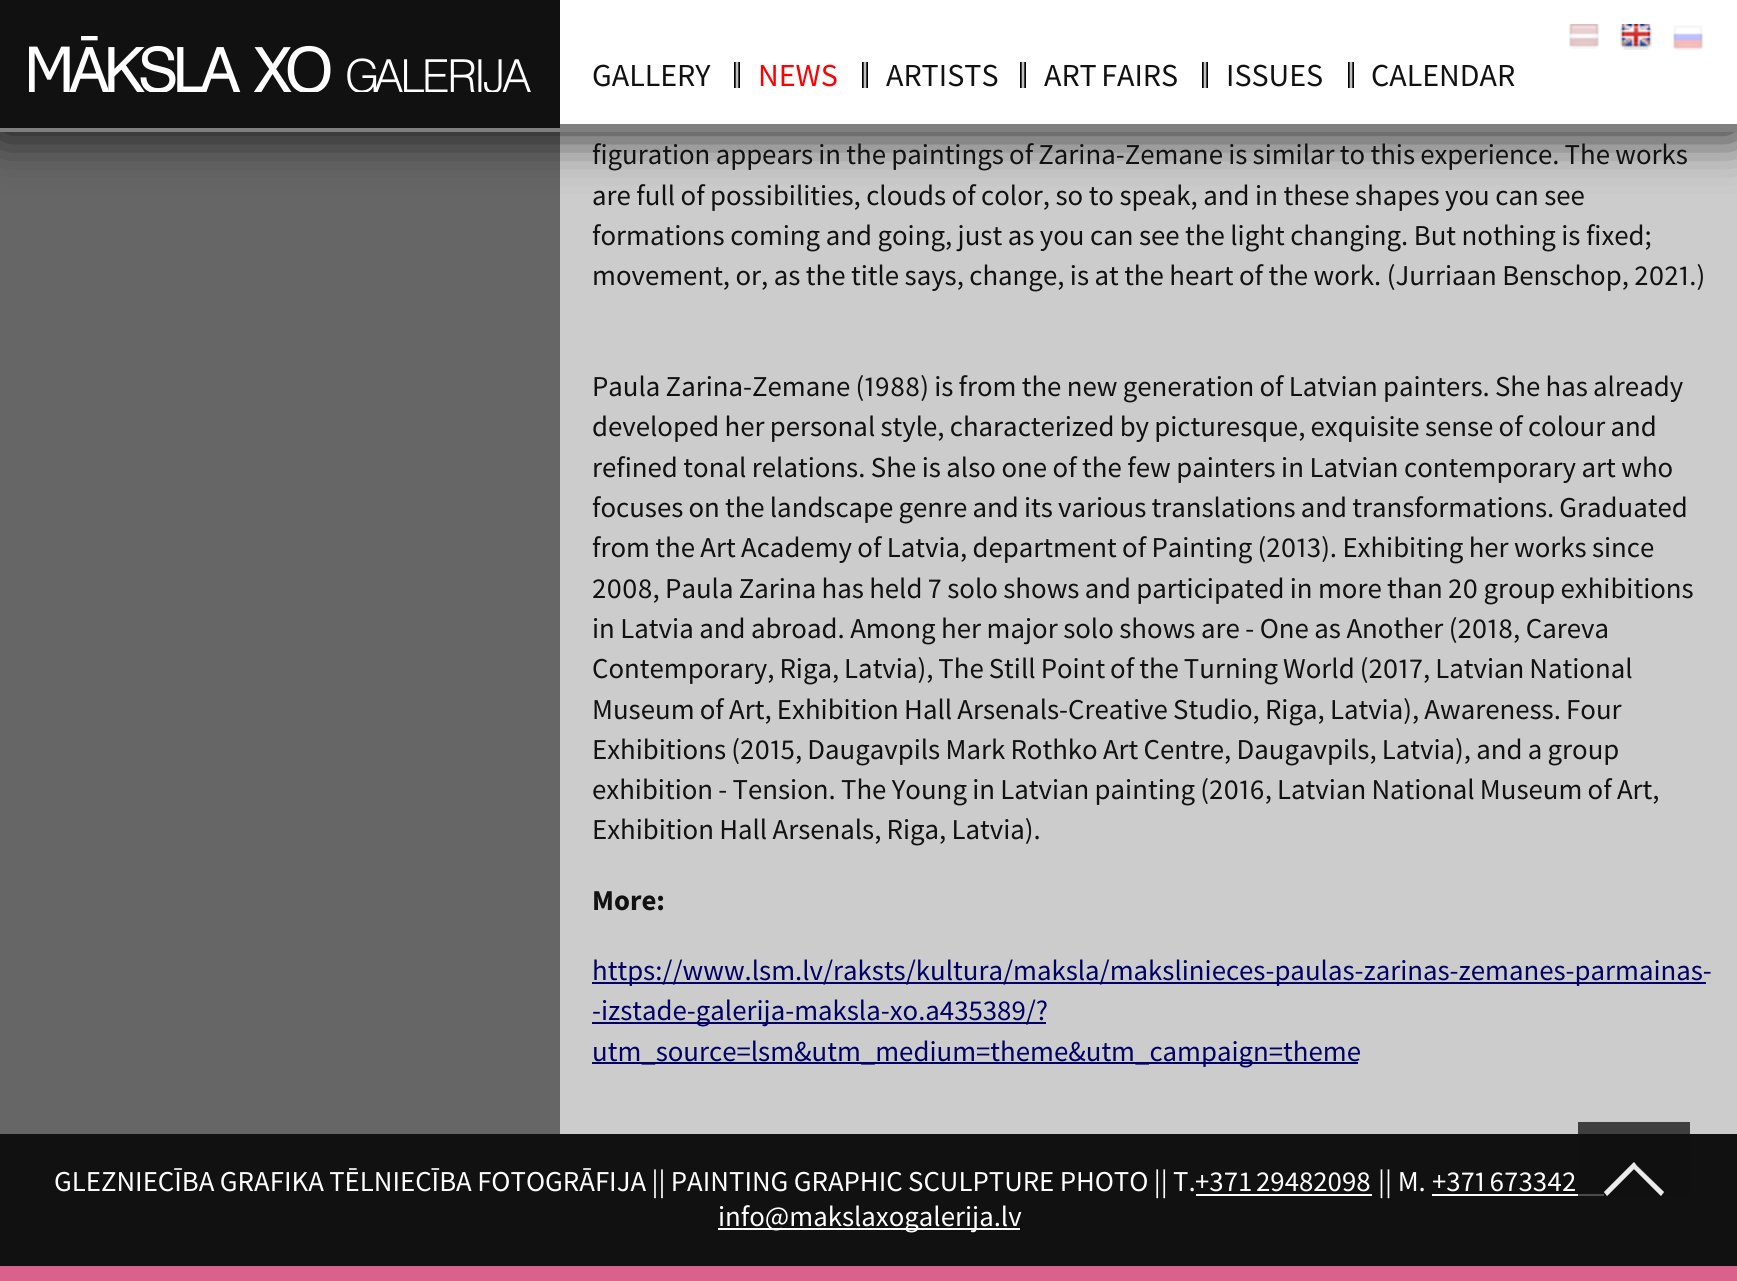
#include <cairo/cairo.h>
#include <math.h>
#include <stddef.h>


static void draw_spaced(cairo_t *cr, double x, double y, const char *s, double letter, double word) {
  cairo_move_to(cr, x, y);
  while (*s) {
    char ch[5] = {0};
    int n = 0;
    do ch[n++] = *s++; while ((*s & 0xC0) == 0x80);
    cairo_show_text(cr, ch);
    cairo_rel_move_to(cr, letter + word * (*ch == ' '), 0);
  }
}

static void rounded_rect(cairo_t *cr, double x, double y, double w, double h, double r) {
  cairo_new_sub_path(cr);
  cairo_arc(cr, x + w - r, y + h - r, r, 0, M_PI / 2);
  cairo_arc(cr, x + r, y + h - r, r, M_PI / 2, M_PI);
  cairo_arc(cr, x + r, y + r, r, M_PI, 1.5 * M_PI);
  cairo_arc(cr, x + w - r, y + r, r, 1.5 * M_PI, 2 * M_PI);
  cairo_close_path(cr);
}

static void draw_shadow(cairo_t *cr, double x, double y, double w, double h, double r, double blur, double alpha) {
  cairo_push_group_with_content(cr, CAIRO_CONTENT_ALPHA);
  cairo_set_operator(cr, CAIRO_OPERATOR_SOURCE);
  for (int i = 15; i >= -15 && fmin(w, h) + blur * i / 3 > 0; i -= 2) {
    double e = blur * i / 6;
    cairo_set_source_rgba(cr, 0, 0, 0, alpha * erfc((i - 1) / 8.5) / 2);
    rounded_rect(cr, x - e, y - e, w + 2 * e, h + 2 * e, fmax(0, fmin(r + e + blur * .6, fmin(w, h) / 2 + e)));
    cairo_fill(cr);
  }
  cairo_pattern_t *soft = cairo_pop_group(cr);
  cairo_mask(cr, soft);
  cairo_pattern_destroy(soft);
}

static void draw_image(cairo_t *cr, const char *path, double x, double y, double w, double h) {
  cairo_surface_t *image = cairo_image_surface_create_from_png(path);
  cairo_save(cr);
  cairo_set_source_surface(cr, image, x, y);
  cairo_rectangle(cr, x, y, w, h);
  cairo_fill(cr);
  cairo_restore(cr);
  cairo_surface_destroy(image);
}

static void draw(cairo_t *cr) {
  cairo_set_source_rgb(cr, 17 / 255.0, 17 / 255.0, 17 / 255.0);
  cairo_paint(cr);
  cairo_set_source_rgb(cr, 204 / 255.0, 204 / 255.0, 204 / 255.0);
  cairo_rectangle(cr, 560, 132, 1177, 1002);
  cairo_fill(cr);
  cairo_set_source_rgb(cr, 102 / 255.0, 102 / 255.0, 102 / 255.0);
  cairo_rectangle(cr, 0, 132, 560, 1002);
  cairo_fill(cr);
  cairo_set_source_rgb(cr, 17 / 255.0, 17 / 255.0, 17 / 255.0);
  draw_shadow(cr, 0, 0, 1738, 132, 0, 25, 1);
  cairo_set_source_rgb(cr, 1, 1, 1);
  cairo_rectangle(cr, 560, 0, 1177, 124);
  cairo_fill(cr);
  cairo_set_source_rgb(cr, 127 / 255.0, 127 / 255.0, 127 / 255.0);
  cairo_rectangle(cr, 0, 124, 1737, 8);
  cairo_fill(cr);
  cairo_set_source_rgb(cr, 17 / 255.0, 17 / 255.0, 17 / 255.0);
  cairo_rectangle(cr, 0, 124, 560, 4);
  cairo_fill(cr);
  draw_image(cr, "images/1.png", 29, 36, 502, 56);
  draw_image(cr, "images/2.png", 1569, 24, 30, 25);
  draw_image(cr, "images/3.png", 1620, 24, 32, 26);
  draw_image(cr, "images/4.png", 1673, 25, 30, 25);
  draw_image(cr, "images/5.png", 734, 62, 6, 26);
  draw_image(cr, "images/5.png", 862, 62, 6, 26);
  draw_image(cr, "images/5.png", 1020, 62, 6, 26);
  draw_image(cr, "images/5.png", 1202, 62, 6, 26);
  draw_image(cr, "images/5.png", 1348, 62, 6, 26);
  cairo_set_source_rgb(cr, 0, 0, 102 / 255.0);
  cairo_rectangle(cr, 592, 982, 1114, 2);
  cairo_fill(cr);
  cairo_rectangle(cr, 592, 1022, 454, 2);
  cairo_fill(cr);
  cairo_rectangle(cr, 592, 1062, 766, 2);
  cairo_fill(cr);
  cairo_set_source_rgb(cr, 218 / 255.0, 97 / 255.0, 140 / 255.0);
  cairo_rectangle(cr, 0, 1266, 1737, 15);
  cairo_fill(cr);
  cairo_set_source_rgb(cr, 1, 1, 1);
  cairo_rectangle(cr, 1196, 1194, 176, 2);
  cairo_fill(cr);
  cairo_rectangle(cr, 1432, 1194, 172, 2);
  cairo_fill(cr);
  cairo_rectangle(cr, 718, 1228, 302, 2);
  cairo_fill(cr);
  cairo_set_source_rgba(cr, 17 / 255.0, 17 / 255.0, 17 / 255.0, 0.75);
  cairo_rectangle(cr, 1578, 1122, 112, 74);
  cairo_fill(cr);
  cairo_set_source_rgb(cr, 236 / 255.0, 236 / 255.0, 236 / 255.0);
  cairo_new_path(cr);
  cairo_move_to(cr, 1634, 1162);
  cairo_line_to(cr, 1604, 1192);
  cairo_line_to(cr, 1607, 1196);
  cairo_line_to(cr, 1634, 1169);
  cairo_line_to(cr, 1661, 1196);
  cairo_line_to(cr, 1664, 1192);
  cairo_line_to(cr, 1637, 1166);
  cairo_close_path(cr);
  cairo_fill(cr);
  cairo_new_path(cr);
  cairo_move_to(cr, 1634, 1162.5);
  cairo_line_to(cr, 1604, 1192.5);
  cairo_line_to(cr, 1607.5, 1195.5);
  cairo_line_to(cr, 1634, 1169);
  cairo_line_to(cr, 1660.5, 1195.5);
  cairo_line_to(cr, 1664, 1192.5);
  cairo_line_to(cr, 1637, 1165.5);
  cairo_close_path(cr);
  cairo_set_line_width(cr, 0.2);
  cairo_stroke(cr);
  cairo_select_font_face(cr, "Source Sans Pro", CAIRO_FONT_SLANT_NORMAL, CAIRO_FONT_WEIGHT_NORMAL);
  cairo_set_font_size(cr, 32);
  cairo_set_source_rgb(cr, 17 / 255.0, 17 / 255.0, 17 / 255.0);
  cairo_move_to(cr, 592, 86);
  cairo_show_text(cr, "GALLERY");
  cairo_set_source_rgb(cr, 1, 0, 0);
  cairo_move_to(cr, 758, 86);
  cairo_show_text(cr, "NEWS");
  cairo_set_source_rgb(cr, 17 / 255.0, 17 / 255.0, 17 / 255.0);
  cairo_move_to(cr, 886, 86);
  cairo_show_text(cr, "ARTISTS");
  draw_spaced(cr, 1044, 86, "ART FAIRS", 0, -2);
  cairo_move_to(cr, 1226, 86);
  cairo_show_text(cr, "ISSUES");
  cairo_move_to(cr, 1371, 86);
  cairo_show_text(cr, "CALENDAR");
  cairo_set_font_size(cr, 28.8);
  draw_spaced(cr, 592, 164, "figuration appears in the paintings of Zarina-Zemane is similar to this experience. The works", 0, -0.5);
  draw_spaced(cr, 592, 205, "are full of possibilities, clouds of color, so to speak, and in these shapes you can see", 0, -0.25);
  draw_spaced(cr, 592, 245, "formations coming and going, just as you can see the light changing. But nothing is fixed;", 0, -0.25);
  cairo_select_font_face(cr, "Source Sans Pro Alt", CAIRO_FONT_SLANT_NORMAL, CAIRO_FONT_WEIGHT_NORMAL);
  draw_spaced(cr, 592, 285, "movement, or, as the title says, change, is at the heart of the work. (Jurriaan Benschop, 2021.)", 0, -0.3);
  draw_spaced(cr, 592, 396, "Paula Zarina-Zemane (1988) is from the new generation of Latvian painters. She has already", 0, -0.5);
  cairo_select_font_face(cr, "Source Sans Pro", CAIRO_FONT_SLANT_NORMAL, CAIRO_FONT_WEIGHT_NORMAL);
  draw_spaced(cr, 592, 436, "developed her personal style, characterized by picturesque, exquisite sense of colour and", 0, -0.5);
  draw_spaced(cr, 592, 477, "refined tonal relations. She is also one of the few painters in Latvian contemporary art who", 0, -0.25);
  draw_spaced(cr, 592, 517, "focuses on the landscape genre and its various translations and transformations. Graduated", 0, -0.6);
  cairo_select_font_face(cr, "Source Sans Pro Alt", CAIRO_FONT_SLANT_NORMAL, CAIRO_FONT_WEIGHT_NORMAL);
  draw_spaced(cr, 592, 557, "from the Art Academy of Latvia, department of Painting (2013). Exhibiting her works since", 0, -0.4);
  draw_spaced(cr, 592, 598, "2008, Paula Zarina has held 7 solo shows and participated in more than 20 group exhibitions", 0, -0.4);
  draw_spaced(cr, 592, 638, "in Latvia and abroad. Among her major solo shows are - One as Another (2018, Careva", 0, -0.25);
  draw_spaced(cr, 592, 678, "Contemporary, Riga, Latvia), The Still Point of the Turning World (2017, Latvian National", 0, -0.75);
  cairo_select_font_face(cr, "Source Sans Pro", CAIRO_FONT_SLANT_NORMAL, CAIRO_FONT_WEIGHT_NORMAL);
  draw_spaced(cr, 592, 719, "Museum of Art, Exhibition Hall Arsenals-Creative Studio, Riga, Latvia), Awareness. Four", 0, -0.5);
  cairo_select_font_face(cr, "Source Sans Pro Alt", CAIRO_FONT_SLANT_NORMAL, CAIRO_FONT_WEIGHT_NORMAL);
  draw_spaced(cr, 592, 759, "Exhibitions (2015, Daugavpils Mark Rothko Art Centre, Daugavpils, Latvia), and a group", 0, -0.5);
  draw_spaced(cr, 592, 799, "exhibition - Tension. The Young in Latvian painting (2016, Latvian National Museum of Art,", 0, -0.5);
  cairo_select_font_face(cr, "Source Sans Pro", CAIRO_FONT_SLANT_NORMAL, CAIRO_FONT_WEIGHT_NORMAL);
  draw_spaced(cr, 592, 839, "Exhibition Hall Arsenals, Riga, Latvia).", 0, -0.5);
  cairo_select_font_face(cr, "Source Sans Pro", CAIRO_FONT_SLANT_NORMAL, CAIRO_FONT_WEIGHT_BOLD);
  cairo_move_to(cr, 592, 910);
  cairo_show_text(cr, "More:");
  cairo_select_font_face(cr, "Source Sans Pro", CAIRO_FONT_SLANT_NORMAL, CAIRO_FONT_WEIGHT_NORMAL);
  cairo_set_source_rgb(cr, 0, 0, 102 / 255.0);
  cairo_move_to(cr, 592, 980);
  cairo_show_text(cr, "https://www.lsm.lv/raksts/kultura/maksla/makslinieces-paulas-zarinas-zemanes-parmainas-");
  cairo_move_to(cr, 592, 1020);
  cairo_show_text(cr, "-izstade-galerija-maksla-xo.a435389/?");
  cairo_move_to(cr, 592, 1061);
  cairo_show_text(cr, "utm_source=lsm&utm_medium=theme&utm_campaign=theme");
  cairo_set_source_rgb(cr, 1, 1, 1);
  draw_spaced(cr, 54, 1191, "GLEZNIECĪBA GRAFIKA TĒLNIECĪBA FOTOGRĀFIJA || PAINTING GRAPHIC SCULPTURE PHOTO || T.", 0, -0.4);
  draw_spaced(cr, 1195, 1191, "+371 29482098", 0, -2);
  cairo_move_to(cr, 1378, 1191);
  cairo_show_text(cr, "|| M.");
  cairo_select_font_face(cr, "Source Sans Pro Alt", CAIRO_FONT_SLANT_NORMAL, CAIRO_FONT_WEIGHT_NORMAL);
  draw_spaced(cr, 1432, 1191, "+371 673342", 0, -2);
  cairo_select_font_face(cr, "Source Sans Pro", CAIRO_FONT_SLANT_NORMAL, CAIRO_FONT_WEIGHT_NORMAL);
  cairo_move_to(cr, 718, 1226);
  cairo_show_text(cr, "info@makslaxogalerija.lv");
}

int main(void) {
  cairo_surface_t *surface = cairo_image_surface_create(CAIRO_FORMAT_RGB24, 1737, 1281);
  cairo_t *cr = cairo_create(surface);
  cairo_font_options_t *options = cairo_font_options_create();
  cairo_font_options_set_hint_metrics(options, CAIRO_HINT_METRICS_OFF);
  cairo_font_options_set_hint_style(options, CAIRO_HINT_STYLE_NONE);
  cairo_set_font_options(cr, options);
  cairo_set_miter_limit(cr, 4);
  draw(cr);
  cairo_surface_write_to_png(surface, "out.png");
  cairo_font_options_destroy(options);
  cairo_destroy(cr);
  cairo_surface_destroy(surface);
  return 0;
}
